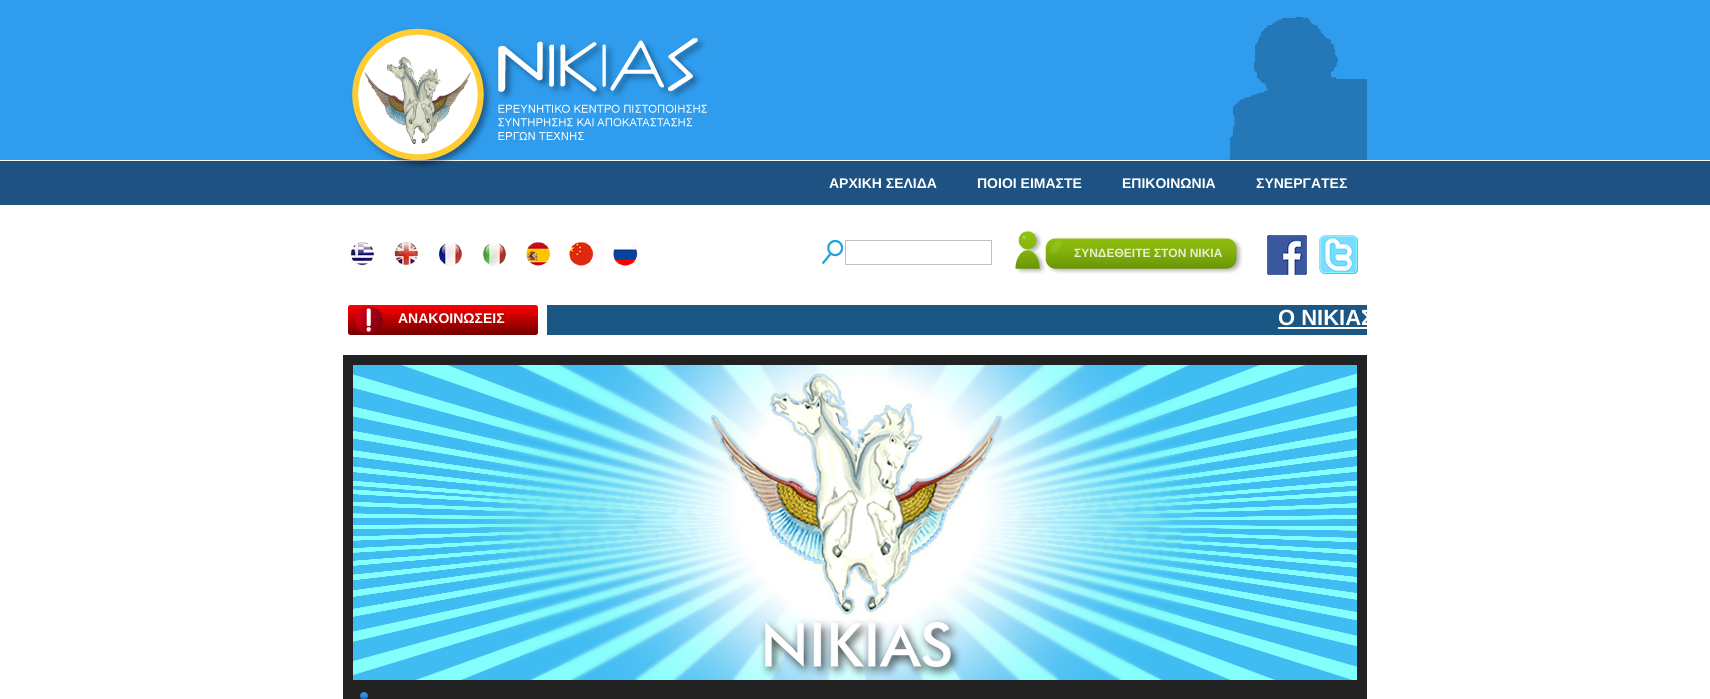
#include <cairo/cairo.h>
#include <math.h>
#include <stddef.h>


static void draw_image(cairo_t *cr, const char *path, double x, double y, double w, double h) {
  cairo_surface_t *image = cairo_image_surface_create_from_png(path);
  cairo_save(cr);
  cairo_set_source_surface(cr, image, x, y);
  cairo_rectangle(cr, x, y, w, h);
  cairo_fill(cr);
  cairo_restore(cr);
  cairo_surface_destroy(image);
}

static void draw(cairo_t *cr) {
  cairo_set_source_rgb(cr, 1, 1, 1);
  cairo_paint(cr);
  draw_image(cr, "images/1.png", 0, 0, 1710, 205);
  draw_image(cr, "images/2.png", 1229, 17, 138, 143);
  draw_image(cr, "images/3.png", 351, 28, 356, 141);
  draw_image(cr, "images/4.png", 350, 242, 25, 24);
  draw_image(cr, "images/5.png", 394, 242, 24, 24);
  draw_image(cr, "images/6.png", 438, 242, 25, 24);
  draw_image(cr, "images/7.png", 482, 242, 24, 24);
  draw_image(cr, "images/8.png", 526, 242, 25, 24);
  draw_image(cr, "images/9.png", 564, 242, 38, 27);
  draw_image(cr, "images/10.png", 613, 243, 25, 23);
  draw_image(cr, "images/11.png", 822, 240, 21, 24);
  cairo_rectangle(cr, 845.5, 240.5, 146, 24);
  cairo_set_source_rgb(cr, 192 / 255.0, 192 / 255.0, 192 / 255.0);
  cairo_set_line_width(cr, 1);
  cairo_stroke(cr);
  draw_image(cr, "images/12.png", 1015, 231, 228, 43);
  draw_image(cr, "images/13.png", 1267, 235, 40, 40);
  draw_image(cr, "images/14.png", 1319, 235, 40, 40);
  draw_image(cr, "images/15.png", 348, 305, 190, 30);
  cairo_set_source_rgb(cr, 26 / 255.0, 87 / 255.0, 132 / 255.0);
  cairo_rectangle(cr, 547, 305, 820, 30);
  cairo_fill(cr);
  cairo_set_source_rgb(cr, 1, 1, 1);
  cairo_rectangle(cr, 1278, 327, 89, 2);
  cairo_fill(cr);
  cairo_set_source_rgb(cr, 34 / 255.0, 34 / 255.0, 34 / 255.0);
  cairo_rectangle(cr, 343, 355, 1024, 344);
  cairo_fill(cr);
  draw_image(cr, "images/16.png", 353, 365, 1004, 315);
  draw_image(cr, "images/17.png", 360, 692, 8, 7);
  cairo_select_font_face(cr, "Liberation Sans", CAIRO_FONT_SLANT_NORMAL, CAIRO_FONT_WEIGHT_BOLD);
  cairo_set_font_size(cr, 14);
  cairo_set_source_rgb(cr, 1, 1, 1);
  cairo_move_to(cr, 829, 188);
  cairo_show_text(cr, "ΑΡΧΙΚΗ ΣΕΛΙΔΑ");
  cairo_move_to(cr, 977, 188);
  cairo_show_text(cr, "ΠΟΙΟΙ ΕΙΜΑΣΤΕ");
  cairo_move_to(cr, 1122, 188);
  cairo_show_text(cr, "ΕΠΙΚΟΙΝΩΝΙΑ");
  cairo_move_to(cr, 1256, 188);
  cairo_show_text(cr, "ΣΥΝΕΡΓΑΤΕΣ");
  cairo_set_font_size(cr, 12);
  cairo_set_source_rgb(cr, 230 / 255.0, 239 / 255.0, 206 / 255.0);
  cairo_move_to(cr, 1074, 257);
  cairo_show_text(cr, "ΣΥΝΔΕΘΕΙΤΕ ΣΤΟΝ ΝΙΚΙΑ");
  cairo_set_font_size(cr, 14);
  cairo_set_source_rgb(cr, 1, 1, 1);
  cairo_move_to(cr, 398, 323);
  cairo_show_text(cr, "ΑΝΑΚΟΙΝΩΣΕΙΣ");
  cairo_save(cr);
  cairo_rectangle(cr, 547, 305, 820, 26);
  cairo_clip(cr);
  cairo_set_font_size(cr, 22);
  cairo_move_to(cr, 1278, 325);
  cairo_show_text(cr, "Ο ΝΙΚΙΑΣ");
  cairo_restore(cr);
}

int main(void) {
  cairo_surface_t *surface = cairo_image_surface_create(CAIRO_FORMAT_RGB24, 1710, 699);
  cairo_t *cr = cairo_create(surface);
  cairo_font_options_t *options = cairo_font_options_create();
  cairo_font_options_set_hint_metrics(options, CAIRO_HINT_METRICS_OFF);
  cairo_font_options_set_hint_style(options, CAIRO_HINT_STYLE_NONE);
  cairo_set_font_options(cr, options);
  cairo_set_miter_limit(cr, 4);
  draw(cr);
  cairo_surface_write_to_png(surface, "out.png");
  cairo_font_options_destroy(options);
  cairo_destroy(cr);
  cairo_surface_destroy(surface);
  return 0;
}
